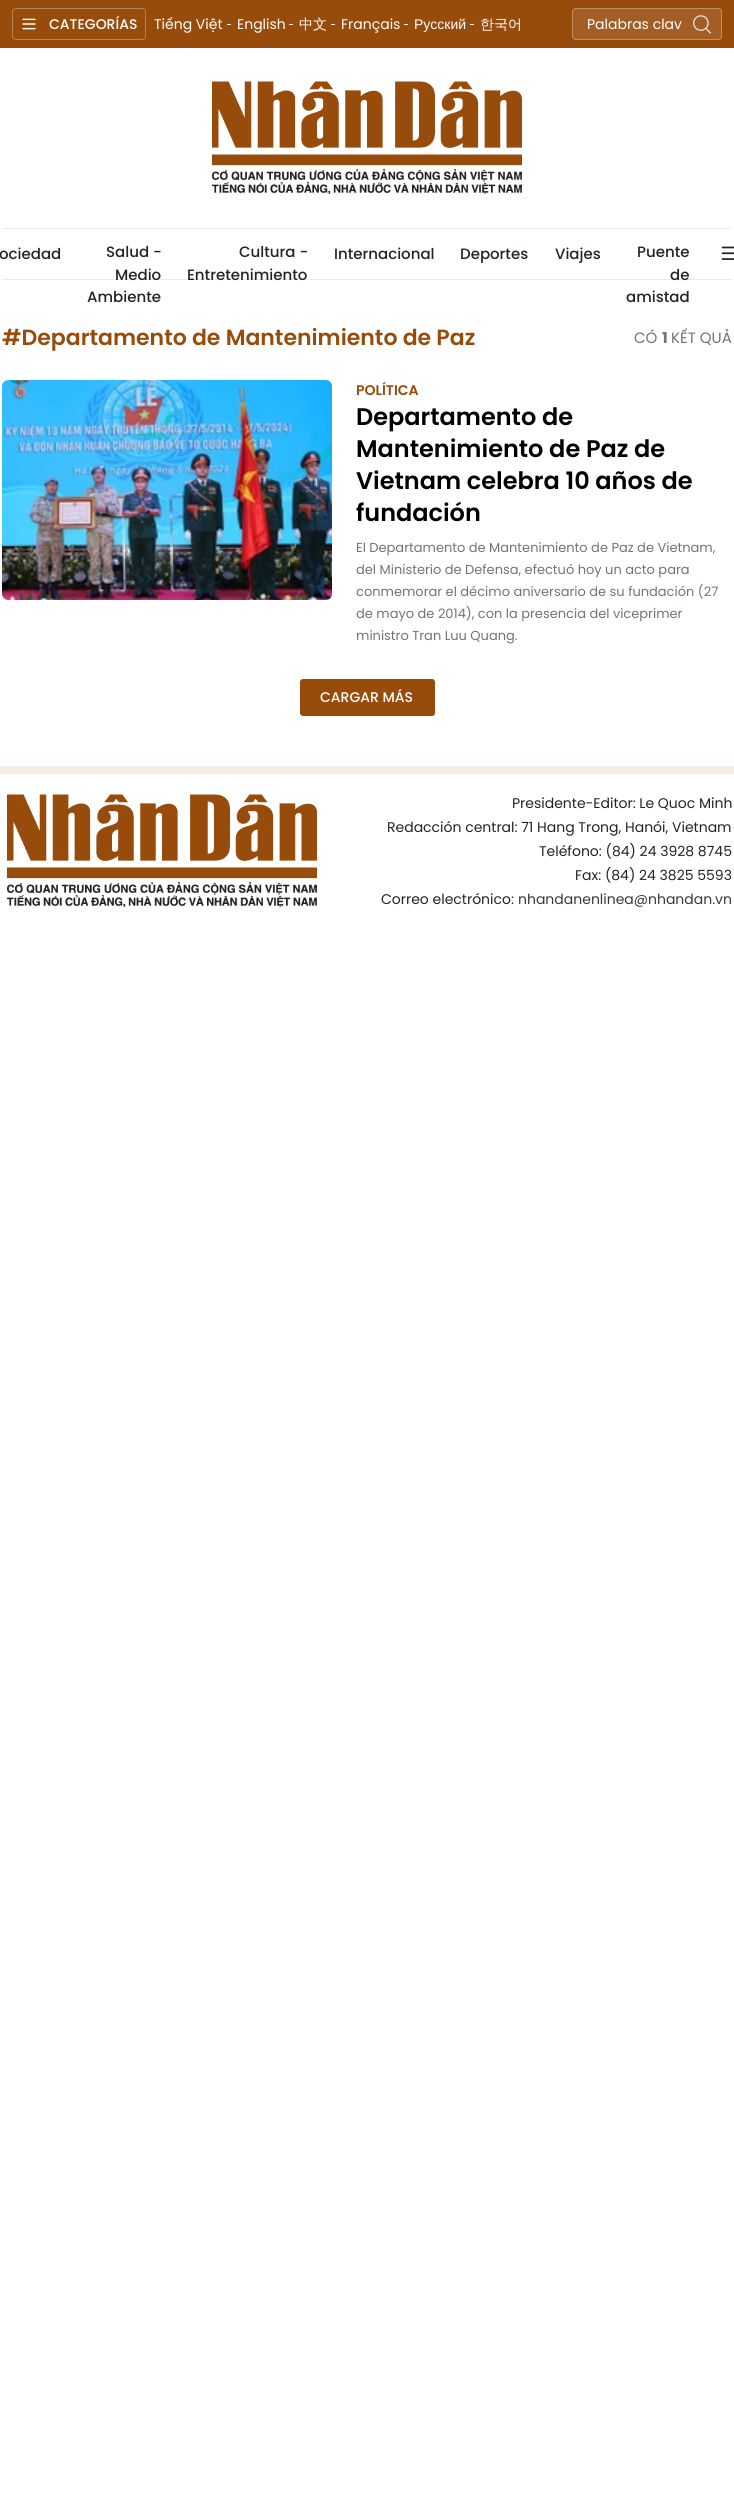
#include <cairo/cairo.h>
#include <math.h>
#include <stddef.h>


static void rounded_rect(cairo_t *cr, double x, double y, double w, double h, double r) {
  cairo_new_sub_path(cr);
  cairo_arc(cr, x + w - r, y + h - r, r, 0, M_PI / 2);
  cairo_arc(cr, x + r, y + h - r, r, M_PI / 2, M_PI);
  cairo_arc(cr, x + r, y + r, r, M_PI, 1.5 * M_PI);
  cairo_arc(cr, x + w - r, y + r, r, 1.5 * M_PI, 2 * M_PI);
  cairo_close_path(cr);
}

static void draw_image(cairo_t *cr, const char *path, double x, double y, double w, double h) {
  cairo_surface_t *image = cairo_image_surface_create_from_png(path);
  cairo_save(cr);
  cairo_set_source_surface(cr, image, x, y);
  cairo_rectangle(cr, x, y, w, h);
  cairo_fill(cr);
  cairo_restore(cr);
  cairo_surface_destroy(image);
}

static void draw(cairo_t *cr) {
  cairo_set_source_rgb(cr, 1, 1, 1);
  cairo_paint(cr);
  cairo_set_source_rgb(cr, 152 / 255.0, 76 / 255.0, 12 / 255.0);
  cairo_rectangle(cr, 0, 0, 734, 48);
  cairo_fill(cr);
  rounded_rect(cr, 12.5, 8.5, 133, 31, 3.5);
  cairo_set_source_rgb(cr, 183 / 255.0, 130 / 255.0, 85 / 255.0);
  cairo_set_line_width(cr, 1);
  cairo_stroke(cr);
  draw_image(cr, "images/1.png", 22, 18, 14, 12);
  cairo_set_source_rgb(cr, 1, 1, 1);
  cairo_rectangle(cr, 227, 24, 4, 1);
  cairo_fill(cr);
  cairo_rectangle(cr, 289, 24, 4, 1);
  cairo_fill(cr);
  cairo_rectangle(cr, 331, 24, 4, 1);
  cairo_fill(cr);
  cairo_rectangle(cr, 404, 24, 4, 1);
  cairo_fill(cr);
  cairo_rectangle(cr, 470, 24, 4, 1);
  cairo_fill(cr);
  cairo_set_source_rgb(cr, 162 / 255.0, 94 / 255.0, 36 / 255.0);
  rounded_rect(cr, 572, 8, 150, 32, 4);
  cairo_fill(cr);
  rounded_rect(cr, 572.5, 8.5, 149, 31, 3.5);
  cairo_set_source_rgba(cr, 1, 1, 1, 0.3);
  cairo_stroke(cr);
  draw_image(cr, "images/2.png", 693, 15, 18, 19);
  cairo_set_source_rgb(cr, 152 / 255.0, 76 / 255.0, 12 / 255.0);
  cairo_rectangle(cr, 212, 81, 310, 85);
  cairo_fill(cr);
  draw_image(cr, "images/3.png", 207, 78, 320, 120);
  cairo_set_source_rgb(cr, 233 / 255.0, 236 / 255.0, 239 / 255.0);
  cairo_rectangle(cr, 2, 228, 730, 1);
  cairo_fill(cr);
  cairo_rectangle(cr, 2, 279, 730, 1);
  cairo_fill(cr);
  draw_image(cr, "images/4.png", 721, 246, 13, 14);
  draw_image(cr, "images/5.png", 2, 380, 330, 220);
  cairo_set_source_rgb(cr, 152 / 255.0, 76 / 255.0, 12 / 255.0);
  rounded_rect(cr, 300, 679, 135, 37, 3);
  cairo_fill(cr);
  cairo_set_source_rgb(cr, 245 / 255.0, 237 / 255.0, 231 / 255.0);
  cairo_rectangle(cr, 0, 766, 734, 8);
  cairo_fill(cr);
  cairo_set_source_rgb(cr, 152 / 255.0, 76 / 255.0, 12 / 255.0);
  cairo_rectangle(cr, 7, 794, 310, 85);
  cairo_fill(cr);
  draw_image(cr, "images/3.png", 2, 791, 320, 120);
  cairo_select_font_face(cr, "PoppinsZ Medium", CAIRO_FONT_SLANT_NORMAL, CAIRO_FONT_WEIGHT_NORMAL);
  cairo_set_font_size(cr, 14);
  cairo_set_source_rgb(cr, 1, 1, 1);
  cairo_move_to(cr, 49, 29);
  cairo_show_text(cr, "CATEGORÍAS");
  cairo_select_font_face(cr, "PoppinsZ", CAIRO_FONT_SLANT_NORMAL, CAIRO_FONT_WEIGHT_NORMAL);
  cairo_move_to(cr, 154, 29);
  cairo_show_text(cr, "Tiếng Việt");
  cairo_move_to(cr, 237, 29);
  cairo_show_text(cr, "English");
  cairo_select_font_face(cr, "WenQuanYi Zen Hei Medium", CAIRO_FONT_SLANT_NORMAL, CAIRO_FONT_WEIGHT_NORMAL);
  cairo_move_to(cr, 299, 29);
  cairo_show_text(cr, "中文");
  cairo_select_font_face(cr, "PoppinsZ", CAIRO_FONT_SLANT_NORMAL, CAIRO_FONT_WEIGHT_NORMAL);
  cairo_move_to(cr, 341, 29);
  cairo_show_text(cr, "Français");
  cairo_select_font_face(cr, "Liberation Sans", CAIRO_FONT_SLANT_NORMAL, CAIRO_FONT_WEIGHT_NORMAL);
  cairo_move_to(cr, 414, 29);
  cairo_show_text(cr, "Русский");
  cairo_select_font_face(cr, "WenQuanYi Zen Hei Medium", CAIRO_FONT_SLANT_NORMAL, CAIRO_FONT_WEIGHT_NORMAL);
  cairo_move_to(cr, 480, 29);
  cairo_show_text(cr, "한국어");
  cairo_select_font_face(cr, "PoppinsZ", CAIRO_FONT_SLANT_NORMAL, CAIRO_FONT_WEIGHT_NORMAL);
  cairo_move_to(cr, 587, 29);
  cairo_show_text(cr, "Palabras clav");
  cairo_select_font_face(cr, "PoppinsZ Medium", CAIRO_FONT_SLANT_NORMAL, CAIRO_FONT_WEIGHT_NORMAL);
  cairo_set_font_size(cr, 15);
  cairo_set_source_rgb(cr, 33 / 255.0, 37 / 255.0, 41 / 255.0);
  cairo_move_to(cr, -1, 259);
  cairo_show_text(cr, "ociedad");
  cairo_move_to(cr, 106, 257);
  cairo_show_text(cr, "Salud -");
  cairo_move_to(cr, 115, 280);
  cairo_show_text(cr, "Medio");
  cairo_move_to(cr, 87, 302);
  cairo_show_text(cr, "Ambiente");
  cairo_move_to(cr, 239, 257);
  cairo_show_text(cr, "Cultura -");
  cairo_move_to(cr, 187, 280);
  cairo_show_text(cr, "Entretenimiento");
  cairo_move_to(cr, 334, 259);
  cairo_show_text(cr, "Internacional");
  cairo_move_to(cr, 460, 259);
  cairo_show_text(cr, "Deportes");
  cairo_move_to(cr, 555, 259);
  cairo_show_text(cr, "Viajes");
  cairo_move_to(cr, 637, 257);
  cairo_show_text(cr, "Puente");
  cairo_move_to(cr, 670, 280);
  cairo_show_text(cr, "de");
  cairo_move_to(cr, 626, 302);
  cairo_show_text(cr, "amistad");
  cairo_select_font_face(cr, "PoppinsZ SemiBold", CAIRO_FONT_SLANT_NORMAL, CAIRO_FONT_WEIGHT_NORMAL);
  cairo_set_font_size(cr, 22);
  cairo_set_source_rgb(cr, 152 / 255.0, 76 / 255.0, 12 / 255.0);
  cairo_move_to(cr, 2, 345);
  cairo_show_text(cr, "#Departamento de Mantenimiento de Paz");
  cairo_select_font_face(cr, "PoppinsZ", CAIRO_FONT_SLANT_NORMAL, CAIRO_FONT_WEIGHT_NORMAL);
  cairo_set_font_size(cr, 15);
  cairo_set_source_rgb(cr, 108 / 255.0, 117 / 255.0, 125 / 255.0);
  cairo_move_to(cr, 634, 343);
  cairo_show_text(cr, "CÓ");
  cairo_select_font_face(cr, "PoppinsZ", CAIRO_FONT_SLANT_NORMAL, CAIRO_FONT_WEIGHT_BOLD);
  cairo_move_to(cr, 662, 343);
  cairo_show_text(cr, "1");
  cairo_select_font_face(cr, "PoppinsZ", CAIRO_FONT_SLANT_NORMAL, CAIRO_FONT_WEIGHT_NORMAL);
  cairo_move_to(cr, 671, 343);
  cairo_show_text(cr, "KẾT QUẢ");
  cairo_select_font_face(cr, "PoppinsZ SemiBold", CAIRO_FONT_SLANT_NORMAL, CAIRO_FONT_WEIGHT_NORMAL);
  cairo_set_font_size(cr, 14);
  cairo_set_source_rgb(cr, 152 / 255.0, 76 / 255.0, 12 / 255.0);
  cairo_move_to(cr, 356, 395);
  cairo_show_text(cr, "POLÍTICA");
  cairo_set_font_size(cr, 24);
  cairo_set_source_rgb(cr, 0, 0, 0);
  cairo_move_to(cr, 356, 425);
  cairo_show_text(cr, "Departamento de");
  cairo_move_to(cr, 356, 457);
  cairo_show_text(cr, "Mantenimiento de Paz de");
  cairo_move_to(cr, 356, 489);
  cairo_show_text(cr, "Vietnam celebra 10 años de");
  cairo_move_to(cr, 356, 521);
  cairo_show_text(cr, "fundación");
  cairo_select_font_face(cr, "PoppinsZ", CAIRO_FONT_SLANT_NORMAL, CAIRO_FONT_WEIGHT_NORMAL);
  cairo_set_font_size(cr, 13);
  cairo_set_source_rgb(cr, 108 / 255.0, 117 / 255.0, 125 / 255.0);
  cairo_move_to(cr, 356, 552);
  cairo_show_text(cr, "El Departamento de Mantenimiento de Paz de Vietnam,");
  cairo_move_to(cr, 356, 574);
  cairo_show_text(cr, "del Ministerio de Defensa, efectuó hoy un acto para");
  cairo_move_to(cr, 356, 596);
  cairo_show_text(cr, "conmemorar el décimo aniversario de su fundación (27");
  cairo_move_to(cr, 356, 618);
  cairo_show_text(cr, "de mayo de 2014), con la presencia del viceprimer");
  cairo_move_to(cr, 356, 640);
  cairo_show_text(cr, "ministro Tran Luu Quang.");
  cairo_select_font_face(cr, "PoppinsZ Medium", CAIRO_FONT_SLANT_NORMAL, CAIRO_FONT_WEIGHT_NORMAL);
  cairo_set_font_size(cr, 14);
  cairo_set_source_rgb(cr, 1, 1, 1);
  cairo_move_to(cr, 320, 702);
  cairo_show_text(cr, "CARGAR MÁS");
  cairo_select_font_face(cr, "PoppinsZ", CAIRO_FONT_SLANT_NORMAL, CAIRO_FONT_WEIGHT_NORMAL);
  cairo_set_source_rgb(cr, 33 / 255.0, 37 / 255.0, 41 / 255.0);
  cairo_move_to(cr, 512, 808);
  cairo_show_text(cr, "Presidente-Editor: Le Quoc Minh");
  cairo_move_to(cr, 387, 832);
  cairo_show_text(cr, "Redacción central: 71 Hang Trong, Hanói, Vietnam");
  cairo_move_to(cr, 539, 856);
  cairo_show_text(cr, "Teléfono: (84) 24 3928 8745");
  cairo_move_to(cr, 575, 880);
  cairo_show_text(cr, "Fax: (84) 24 3825 5593");
  cairo_move_to(cr, 381, 904);
  cairo_show_text(cr, "Correo electrónico:");
  cairo_set_source_rgb(cr, 52 / 255.0, 58 / 255.0, 64 / 255.0);
  cairo_move_to(cr, 518, 904);
  cairo_show_text(cr, "nhandanenlinea@nhandan.vn");
}

int main(void) {
  cairo_surface_t *surface = cairo_image_surface_create(CAIRO_FORMAT_RGB24, 734, 2517);
  cairo_t *cr = cairo_create(surface);
  cairo_font_options_t *options = cairo_font_options_create();
  cairo_font_options_set_hint_metrics(options, CAIRO_HINT_METRICS_OFF);
  cairo_font_options_set_hint_style(options, CAIRO_HINT_STYLE_NONE);
  cairo_set_font_options(cr, options);
  cairo_set_miter_limit(cr, 4);
  draw(cr);
  cairo_surface_write_to_png(surface, "out.png");
  cairo_font_options_destroy(options);
  cairo_destroy(cr);
  cairo_surface_destroy(surface);
  return 0;
}
